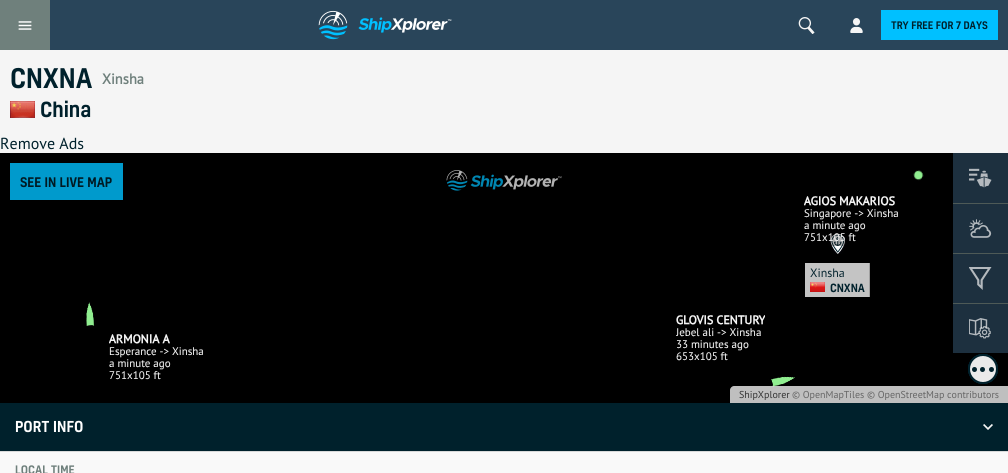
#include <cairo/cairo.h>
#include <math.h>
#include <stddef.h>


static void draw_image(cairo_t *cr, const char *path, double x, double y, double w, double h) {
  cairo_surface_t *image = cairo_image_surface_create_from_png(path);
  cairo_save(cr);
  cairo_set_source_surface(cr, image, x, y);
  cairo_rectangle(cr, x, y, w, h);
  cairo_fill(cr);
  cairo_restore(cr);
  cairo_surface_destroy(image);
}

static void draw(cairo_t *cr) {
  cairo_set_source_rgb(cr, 41 / 255.0, 69 / 255.0, 90 / 255.0);
  cairo_paint(cr);
  cairo_set_source_rgb(cr, 111 / 255.0, 128 / 255.0, 124 / 255.0);
  cairo_rectangle(cr, 0, 0, 50, 50);
  cairo_fill(cr);
  draw_image(cr, "images/1.png", 18, 21, 14, 9);
  draw_image(cr, "images/2.png", 318, 10, 30, 30);
  draw_image(cr, "images/3.png", 358, 17, 94, 16);
  draw_image(cr, "images/4.png", 798, 17, 17, 17);
  draw_image(cr, "images/5.png", 850, 18, 13, 15);
  cairo_set_source_rgb(cr, 0, 192 / 255.0, 1);
  cairo_rectangle(cr, 881, 10, 117, 30);
  cairo_fill(cr);
  cairo_set_source_rgb(cr, 245 / 255.0, 245 / 255.0, 245 / 255.0);
  cairo_rectangle(cr, 0, 50, 1008, 103);
  cairo_fill(cr);
  draw_image(cr, "images/6.png", 10, 101, 25, 17);
  cairo_set_source_rgb(cr, 0, 0, 0);
  cairo_rectangle(cr, 0, 153, 1008, 250);
  cairo_fill(cr);
  draw_image(cr, "images/12.png", 86, 170, 838, 217);
  draw_image(cr, "images/13.png", 109, 196, 789, 184);
  cairo_set_source_rgb(cr, 0, 154 / 255.0, 204 / 255.0);
  cairo_rectangle(cr, 10, 163, 113, 37);
  cairo_fill(cr);
  draw_image(cr, "images/7.png", 446, 170, 116, 21);
  cairo_set_source_rgb(cr, 29 / 255.0, 48 / 255.0, 63 / 255.0);
  cairo_rectangle(cr, 953, 153, 55, 50);
  cairo_fill(cr);
  draw_image(cr, "images/8.png", 969, 168, 23, 20);
  cairo_rectangle(cr, 953, 204, 55, 49);
  cairo_fill(cr);
  cairo_set_source_rgb(cr, 78 / 255.0, 90 / 255.0, 87 / 255.0);
  cairo_rectangle(cr, 953, 203, 55, 1);
  cairo_fill(cr);
  draw_image(cr, "images/9.png", 969, 219, 23, 19);
  cairo_set_source_rgb(cr, 29 / 255.0, 48 / 255.0, 63 / 255.0);
  cairo_rectangle(cr, 953, 254, 55, 49);
  cairo_fill(cr);
  cairo_set_source_rgb(cr, 78 / 255.0, 90 / 255.0, 87 / 255.0);
  cairo_rectangle(cr, 953, 253, 55, 1);
  cairo_fill(cr);
  draw_image(cr, "images/10.png", 969, 267, 23, 23);
  cairo_set_source_rgb(cr, 29 / 255.0, 48 / 255.0, 63 / 255.0);
  cairo_rectangle(cr, 953, 304, 55, 49);
  cairo_fill(cr);
  cairo_set_source_rgb(cr, 78 / 255.0, 90 / 255.0, 87 / 255.0);
  cairo_rectangle(cr, 953, 303, 55, 1);
  cairo_fill(cr);
  draw_image(cr, "images/11.png", 969, 318, 22, 21);
  cairo_arc(cr, 983, 369, 14, 0, 2 * M_PI);
  cairo_set_source_rgb(cr, 0, 33 / 255.0, 44 / 255.0);
  cairo_stroke(cr);
  cairo_arc(cr, 983, 369, 14, 0, 2 * M_PI);
  cairo_stroke(cr);
  cairo_arc(cr, 983, 369, 14, 0, 2 * M_PI);
  cairo_stroke(cr);
  cairo_set_source_rgb(cr, 234 / 255.0, 234 / 255.0, 234 / 255.0);
  cairo_arc(cr, 983, 369, 14, 0, 2 * M_PI);
  cairo_fill_preserve(cr);
  cairo_set_source_rgb(cr, 0, 33 / 255.0, 44 / 255.0);
  cairo_stroke(cr);
  cairo_arc(cr, 974.5, 369.5, 2.5, 0, 2 * M_PI);
  cairo_fill(cr);
  cairo_arc(cr, 982.5, 369.5, 2.5, 0, 2 * M_PI);
  cairo_fill(cr);
  cairo_arc(cr, 991.5, 369.5, 2.5, 0, 2 * M_PI);
  cairo_fill(cr);
  cairo_set_source_rgba(cr, 1, 1, 1, 0.75);
  cairo_new_path(cr);
  cairo_move_to(cr, 734, 386);
  cairo_line_to(cr, 1008, 386);
  cairo_line_to(cr, 1008, 403);
  cairo_line_to(cr, 730, 403);
  cairo_line_to(cr, 730, 390);
  cairo_curve_to(cr, 730, 388, 732, 386, 734, 386);
  cairo_close_path(cr);
  cairo_fill(cr);
  cairo_set_source_rgb(cr, 0, 33 / 255.0, 44 / 255.0);
  cairo_rectangle(cr, 0, 403, 1008, 48);
  cairo_fill(cr);
  draw_image(cr, "images/14.png", 983, 424, 10, 6);
  cairo_set_source_rgb(cr, 217 / 255.0, 218 / 255.0, 218 / 255.0);
  cairo_rectangle(cr, 0, 451, 1008, 1);
  cairo_fill(cr);
  cairo_set_source_rgb(cr, 249 / 255.0, 249 / 255.0, 249 / 255.0);
  cairo_rectangle(cr, 0, 452, 1008, 21);
  cairo_fill(cr);
  cairo_select_font_face(cr, "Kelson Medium", CAIRO_FONT_SLANT_NORMAL, CAIRO_FONT_WEIGHT_NORMAL);
  cairo_set_font_size(cr, 10);
  cairo_set_source_rgb(cr, 0, 33 / 255.0, 44 / 255.0);
  cairo_move_to(cr, 891, 29);
  cairo_show_text(cr, "TRY FREE FOR 7 DAYS");
  cairo_set_font_size(cr, 26);
  cairo_move_to(cr, 10, 88);
  cairo_show_text(cr, "CNXNA");
  cairo_select_font_face(cr, "PT Sans", CAIRO_FONT_SLANT_NORMAL, CAIRO_FONT_WEIGHT_BOLD);
  cairo_set_font_size(cr, 14.5);
  cairo_set_source_rgb(cr, 111 / 255.0, 128 / 255.0, 124 / 255.0);
  cairo_move_to(cr, 102, 84);
  cairo_show_text(cr, "Xinsha");
  cairo_select_font_face(cr, "Kelson Medium", CAIRO_FONT_SLANT_NORMAL, CAIRO_FONT_WEIGHT_NORMAL);
  cairo_set_font_size(cr, 20);
  cairo_set_source_rgb(cr, 0, 33 / 255.0, 44 / 255.0);
  cairo_move_to(cr, 40, 117);
  cairo_show_text(cr, "China");
  cairo_select_font_face(cr, "PT Sans", CAIRO_FONT_SLANT_NORMAL, CAIRO_FONT_WEIGHT_NORMAL);
  cairo_set_font_size(cr, 16);
  cairo_move_to(cr, 0, 149);
  cairo_show_text(cr, "Remove Ads");
  cairo_select_font_face(cr, "Kelson Medium", CAIRO_FONT_SLANT_NORMAL, CAIRO_FONT_WEIGHT_NORMAL);
  cairo_set_font_size(cr, 12.75);
  cairo_set_source_rgb(cr, 0, 26 / 255.0, 35 / 255.0);
  cairo_move_to(cr, 20, 187);
  cairo_show_text(cr, "SEE IN LIVE MAP");
  cairo_select_font_face(cr, "PT Sans", CAIRO_FONT_SLANT_NORMAL, CAIRO_FONT_WEIGHT_NORMAL);
  cairo_set_font_size(cr, 10);
  cairo_set_source_rgb(cr, 51 / 255.0, 51 / 255.0, 51 / 255.0);
  cairo_move_to(cr, 739, 398);
  cairo_show_text(cr, "ShipXplorer");
  cairo_set_source_rgb(cr, 102 / 255.0, 102 / 255.0, 102 / 255.0);
  cairo_move_to(cr, 792, 398);
  cairo_show_text(cr, "© OpenMapTiles © OpenStreetMap contributors");
  cairo_select_font_face(cr, "Kelson Medium", CAIRO_FONT_SLANT_NORMAL, CAIRO_FONT_WEIGHT_NORMAL);
  cairo_set_font_size(cr, 14.5);
  cairo_set_source_rgb(cr, 1, 1, 1);
  cairo_move_to(cr, 15, 432);
  cairo_show_text(cr, "PORT INFO");
  cairo_set_font_size(cr, 11.25);
  cairo_set_source_rgb(cr, 111 / 255.0, 128 / 255.0, 124 / 255.0);
  cairo_move_to(cr, 15, 474);
  cairo_show_text(cr, "LOCAL TIME");
}

int main(void) {
  cairo_surface_t *surface = cairo_image_surface_create(CAIRO_FORMAT_RGB24, 1008, 473);
  cairo_t *cr = cairo_create(surface);
  cairo_font_options_t *options = cairo_font_options_create();
  cairo_font_options_set_hint_metrics(options, CAIRO_HINT_METRICS_OFF);
  cairo_font_options_set_hint_style(options, CAIRO_HINT_STYLE_NONE);
  cairo_set_font_options(cr, options);
  cairo_set_miter_limit(cr, 4);
  draw(cr);
  cairo_surface_write_to_png(surface, "out.png");
  cairo_font_options_destroy(options);
  cairo_destroy(cr);
  cairo_surface_destroy(surface);
  return 0;
}
